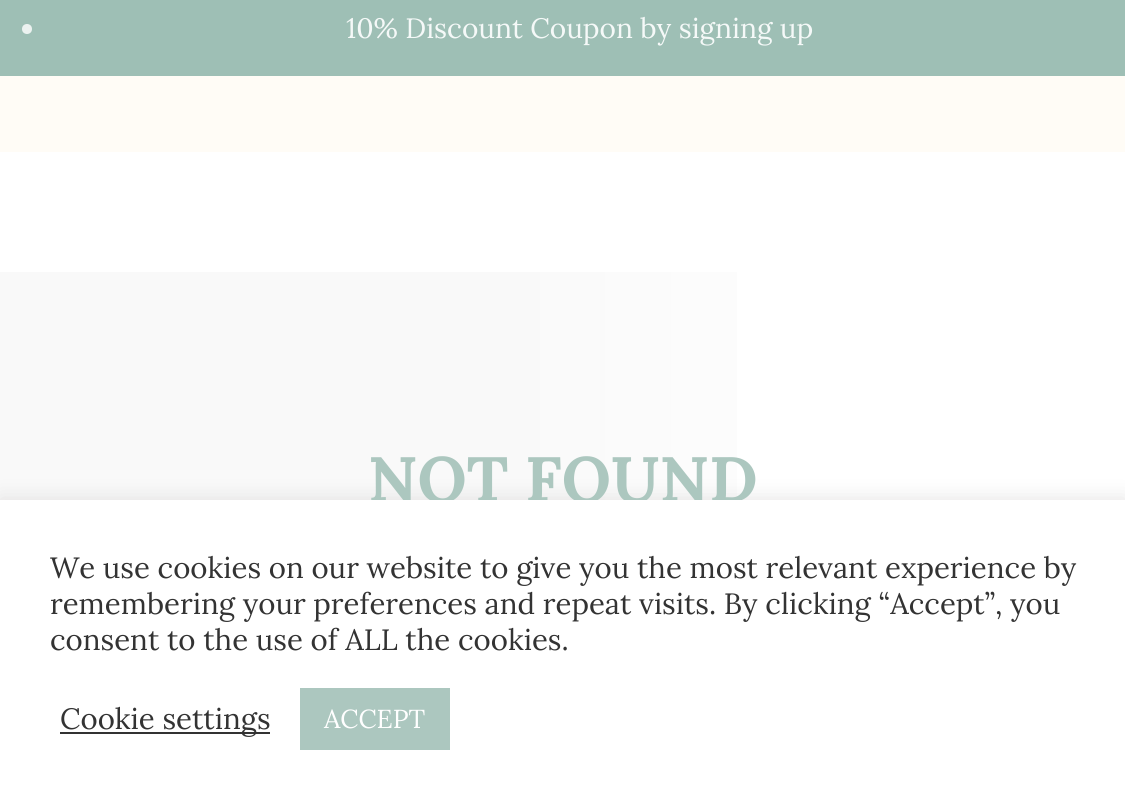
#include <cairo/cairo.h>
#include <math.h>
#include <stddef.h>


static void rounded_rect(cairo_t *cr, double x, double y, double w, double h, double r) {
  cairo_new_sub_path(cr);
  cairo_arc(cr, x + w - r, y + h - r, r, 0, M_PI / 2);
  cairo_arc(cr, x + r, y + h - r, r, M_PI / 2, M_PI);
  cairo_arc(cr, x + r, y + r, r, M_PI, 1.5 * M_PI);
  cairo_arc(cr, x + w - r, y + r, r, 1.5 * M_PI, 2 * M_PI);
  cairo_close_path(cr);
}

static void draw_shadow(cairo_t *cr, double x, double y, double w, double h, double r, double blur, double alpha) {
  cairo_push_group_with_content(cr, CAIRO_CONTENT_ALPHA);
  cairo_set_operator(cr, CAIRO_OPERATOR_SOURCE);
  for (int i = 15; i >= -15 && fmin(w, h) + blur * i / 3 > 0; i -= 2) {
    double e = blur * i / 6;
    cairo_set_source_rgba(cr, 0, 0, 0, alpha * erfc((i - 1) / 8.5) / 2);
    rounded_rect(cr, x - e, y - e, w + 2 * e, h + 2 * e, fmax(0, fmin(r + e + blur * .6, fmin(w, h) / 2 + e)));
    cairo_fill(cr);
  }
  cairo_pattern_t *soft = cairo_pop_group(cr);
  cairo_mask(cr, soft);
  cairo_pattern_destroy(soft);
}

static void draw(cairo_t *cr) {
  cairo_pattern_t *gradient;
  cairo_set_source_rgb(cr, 1, 1, 1);
  cairo_paint(cr);
  cairo_set_source_rgb(cr, 158 / 255.0, 191 / 255.0, 181 / 255.0);
  cairo_rectangle(cr, 0, 0, 1125, 76);
  cairo_fill(cr);
  cairo_set_source_rgb(cr, 236 / 255.0, 242 / 255.0, 240 / 255.0);
  cairo_arc(cr, 27, 29, 5, 0, 2 * M_PI);
  cairo_fill(cr);
  cairo_set_source_rgb(cr, 1, 252 / 255.0, 246 / 255.0);
  cairo_rectangle(cr, 0, 76, 1125, 76);
  cairo_fill(cr);
  gradient = cairo_pattern_create_linear(0, 674, 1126, 674);
  cairo_pattern_add_color_stop_rgba(gradient, 0.45, 249 / 255.0, 249 / 255.0, 249 / 255.0, 1);
  cairo_pattern_add_color_stop_rgba(gradient, 0.8, 1, 1, 1, 1);
  cairo_pattern_add_color_stop_rgba(gradient, 1, 1, 1, 1, 1);
  cairo_set_source(cr, gradient);
  cairo_pattern_destroy(gradient);
  cairo_rectangle(cr, 0, 272, 737, 228);
  cairo_fill(cr);
  cairo_set_source_rgb(cr, 172 / 255.0, 171 / 255.0, 171 / 255.0);
  draw_shadow(cr, 0, 498, 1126, 310, 0, 10, 0.3);
  cairo_select_font_face(cr, "Lora", CAIRO_FONT_SLANT_NORMAL, CAIRO_FONT_WEIGHT_NORMAL);
  cairo_set_font_size(cr, 28);
  cairo_set_source_rgb(cr, 245 / 255.0, 249 / 255.0, 248 / 255.0);
  cairo_move_to(cr, 346, 38);
  cairo_show_text(cr, "10% Discount Coupon by signing up");
  cairo_select_font_face(cr, "Lora", CAIRO_FONT_SLANT_NORMAL, CAIRO_FONT_WEIGHT_BOLD);
  cairo_set_font_size(cr, 64);
  cairo_set_source_rgb(cr, 172 / 255.0, 199 / 255.0, 191 / 255.0);
  cairo_move_to(cr, 368, 502);
  cairo_show_text(cr, "NOT FOUND");
  cairo_set_source_rgb(cr, 1, 1, 1);
  cairo_rectangle(cr, 0, 500, 1125, 310);
  cairo_fill(cr);
  cairo_select_font_face(cr, "Lora", CAIRO_FONT_SLANT_NORMAL, CAIRO_FONT_WEIGHT_NORMAL);
  cairo_set_font_size(cr, 29.35);
  cairo_set_source_rgb(cr, 51 / 255.0, 51 / 255.0, 51 / 255.0);
  cairo_move_to(cr, 50, 578);
  cairo_show_text(cr, "We use cookies on our website to give you the most relevant experience by");
  cairo_move_to(cr, 50, 614);
  cairo_show_text(cr, "remembering your preferences and repeat visits. By clicking “Accept”, you");
  cairo_move_to(cr, 50, 650);
  cairo_show_text(cr, "consent to the use of ALL the cookies.");
  cairo_rectangle(cr, 60, 732, 210, 2);
  cairo_fill(cr);
  cairo_move_to(cr, 60, 729);
  cairo_show_text(cr, "Cookie settings");
  cairo_set_source_rgb(cr, 172 / 255.0, 199 / 255.0, 191 / 255.0);
  cairo_rectangle(cr, 300, 688, 150, 62);
  cairo_fill(cr);
  cairo_set_font_size(cr, 26);
  cairo_set_source_rgb(cr, 1, 1, 1);
  cairo_move_to(cr, 324, 728);
  cairo_show_text(cr, "ACCEPT");
}

int main(void) {
  cairo_surface_t *surface = cairo_image_surface_create(CAIRO_FORMAT_RGB24, 1125, 810);
  cairo_t *cr = cairo_create(surface);
  cairo_font_options_t *options = cairo_font_options_create();
  cairo_font_options_set_hint_metrics(options, CAIRO_HINT_METRICS_OFF);
  cairo_font_options_set_hint_style(options, CAIRO_HINT_STYLE_NONE);
  cairo_set_font_options(cr, options);
  cairo_set_miter_limit(cr, 4);
  draw(cr);
  cairo_surface_write_to_png(surface, "out.png");
  cairo_font_options_destroy(options);
  cairo_destroy(cr);
  cairo_surface_destroy(surface);
  return 0;
}
